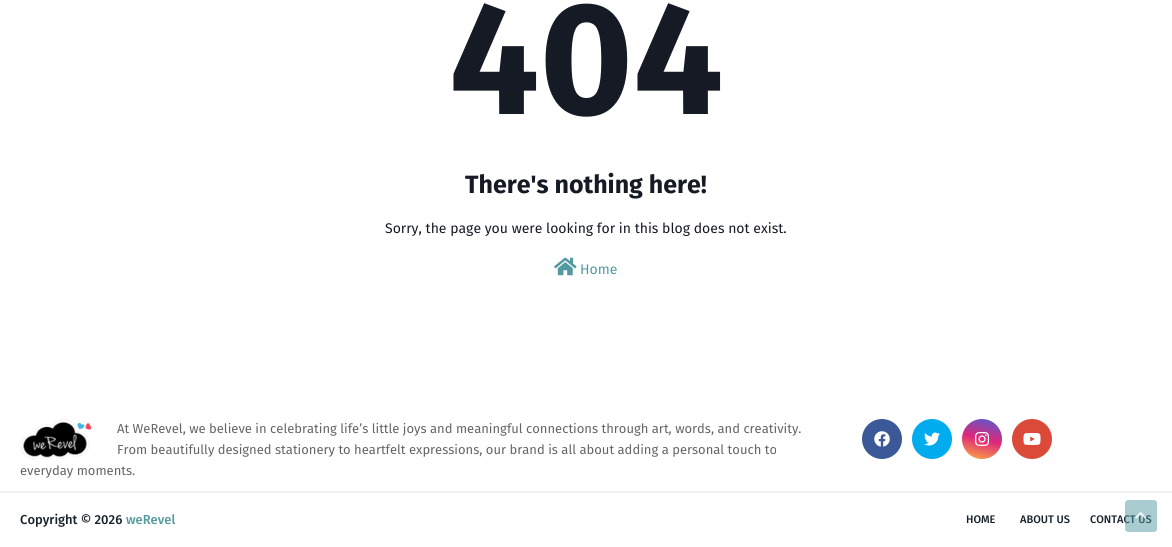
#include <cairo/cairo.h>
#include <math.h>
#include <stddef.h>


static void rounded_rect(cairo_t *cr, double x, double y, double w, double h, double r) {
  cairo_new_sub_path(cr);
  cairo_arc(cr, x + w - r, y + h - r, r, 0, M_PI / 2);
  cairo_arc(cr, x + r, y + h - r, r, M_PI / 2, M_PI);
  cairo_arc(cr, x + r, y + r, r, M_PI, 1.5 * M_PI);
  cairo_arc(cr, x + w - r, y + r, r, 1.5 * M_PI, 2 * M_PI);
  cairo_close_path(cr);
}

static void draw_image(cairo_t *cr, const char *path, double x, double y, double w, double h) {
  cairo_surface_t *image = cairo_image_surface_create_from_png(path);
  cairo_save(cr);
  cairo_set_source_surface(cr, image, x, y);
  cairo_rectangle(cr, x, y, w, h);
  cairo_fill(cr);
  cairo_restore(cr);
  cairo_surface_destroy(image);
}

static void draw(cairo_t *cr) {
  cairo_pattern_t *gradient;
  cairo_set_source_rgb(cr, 1, 1, 1);
  cairo_paint(cr);
  draw_image(cr, "images/1.png", 554, 257, 23, 19);
  cairo_set_source_rgb(cr, 240 / 255.0, 240 / 255.0, 240 / 255.0);
  cairo_rectangle(cr, 0, 491, 1172, 2);
  cairo_fill(cr);
  draw_image(cr, "images/2.png", 21, 419, 71, 40);
  cairo_set_source_rgb(cr, 59 / 255.0, 89 / 255.0, 153 / 255.0);
  cairo_arc(cr, 882, 439, 20, 0, 2 * M_PI);
  cairo_fill(cr);
  draw_image(cr, "images/3.png", 874, 431, 16, 16);
  cairo_set_source_rgb(cr, 0, 172 / 255.0, 238 / 255.0);
  cairo_arc(cr, 932, 439, 20, 0, 2 * M_PI);
  cairo_fill(cr);
  draw_image(cr, "images/4.png", 924, 432, 16, 14);
  gradient = cairo_pattern_create_linear(976, 463, 988, 415);
  cairo_pattern_add_color_stop_rgba(gradient, 0, 1, 177 / 255.0, 61 / 255.0, 1);
  cairo_pattern_add_color_stop_rgba(gradient, 0.5, 221 / 255.0, 39 / 255.0, 123 / 255.0, 1);
  cairo_pattern_add_color_stop_rgba(gradient, 1, 77 / 255.0, 94 / 255.0, 212 / 255.0, 1);
  cairo_set_source(cr, gradient);
  cairo_pattern_destroy(gradient);
  cairo_arc(cr, 982, 439, 20, 0, 2 * M_PI);
  cairo_fill(cr);
  draw_image(cr, "images/5.png", 975, 432, 15, 14);
  cairo_set_source_rgb(cr, 219 / 255.0, 74 / 255.0, 57 / 255.0);
  cairo_arc(cr, 1032, 439, 20, 0, 2 * M_PI);
  cairo_fill(cr);
  draw_image(cr, "images/6.png", 1023, 433, 18, 12);
  cairo_select_font_face(cr, "Fira Sans", CAIRO_FONT_SLANT_NORMAL, CAIRO_FONT_WEIGHT_BOLD);
  cairo_set_font_size(cr, 160);
  cairo_set_source_rgb(cr, 21 / 255.0, 26 / 255.0, 37 / 255.0);
  cairo_move_to(cr, 449, 114);
  cairo_show_text(cr, "404");
  cairo_set_font_size(cr, 25);
  cairo_move_to(cr, 465, 193);
  cairo_show_text(cr, "There's nothing here!");
  cairo_select_font_face(cr, "Fira Sans", CAIRO_FONT_SLANT_NORMAL, CAIRO_FONT_WEIGHT_NORMAL);
  cairo_set_font_size(cr, 14);
  cairo_move_to(cr, 385, 233);
  cairo_show_text(cr, "Sorry, the page you were looking for in this blog does not exist.");
  cairo_set_source_rgb(cr, 83 / 255.0, 154 / 255.0, 160 / 255.0);
  cairo_move_to(cr, 580, 274);
  cairo_show_text(cr, "Home");
  cairo_set_font_size(cr, 13);
  cairo_set_source_rgb(cr, 101 / 255.0, 101 / 255.0, 101 / 255.0);
  cairo_move_to(cr, 117, 433);
  cairo_show_text(cr, "At WeRevel, we believe in celebrating life’s little joys and meaningful connections through art, words, and creativity.");
  cairo_move_to(cr, 117, 454);
  cairo_show_text(cr, "From beautifully designed stationery to heartfelt expressions, our brand is all about adding a personal touch to");
  cairo_move_to(cr, 20, 475);
  cairo_show_text(cr, "everyday moments.");
  cairo_select_font_face(cr, "Fira Sans Medium", CAIRO_FONT_SLANT_NORMAL, CAIRO_FONT_WEIGHT_NORMAL);
  cairo_set_source_rgb(cr, 23 / 255.0, 34 / 255.0, 43 / 255.0);
  cairo_move_to(cr, 20, 524);
  cairo_show_text(cr, "Copyright © 2026");
  cairo_set_source_rgb(cr, 83 / 255.0, 154 / 255.0, 160 / 255.0);
  cairo_move_to(cr, 126, 524);
  cairo_show_text(cr, "weRevel");
  cairo_set_font_size(cr, 11);
  cairo_set_source_rgb(cr, 23 / 255.0, 34 / 255.0, 43 / 255.0);
  cairo_move_to(cr, 966, 523);
  cairo_show_text(cr, "HOME");
  cairo_move_to(cr, 1020, 523);
  cairo_show_text(cr, "ABOUT US");
  cairo_move_to(cr, 1090, 523);
  cairo_show_text(cr, "CONTACT US");
  cairo_set_source_rgba(cr, 83 / 255.0, 154 / 255.0, 160 / 255.0, 0.5);
  rounded_rect(cr, 1125, 500, 32, 32, 3);
  cairo_fill(cr);
  draw_image(cr, "images/7.png", 1135, 511, 12, 8);
}

int main(void) {
  cairo_surface_t *surface = cairo_image_surface_create(CAIRO_FORMAT_RGB24, 1172, 547);
  cairo_t *cr = cairo_create(surface);
  cairo_font_options_t *options = cairo_font_options_create();
  cairo_font_options_set_hint_metrics(options, CAIRO_HINT_METRICS_OFF);
  cairo_font_options_set_hint_style(options, CAIRO_HINT_STYLE_NONE);
  cairo_set_font_options(cr, options);
  cairo_set_miter_limit(cr, 4);
  draw(cr);
  cairo_surface_write_to_png(surface, "out.png");
  cairo_font_options_destroy(options);
  cairo_destroy(cr);
  cairo_surface_destroy(surface);
  return 0;
}
